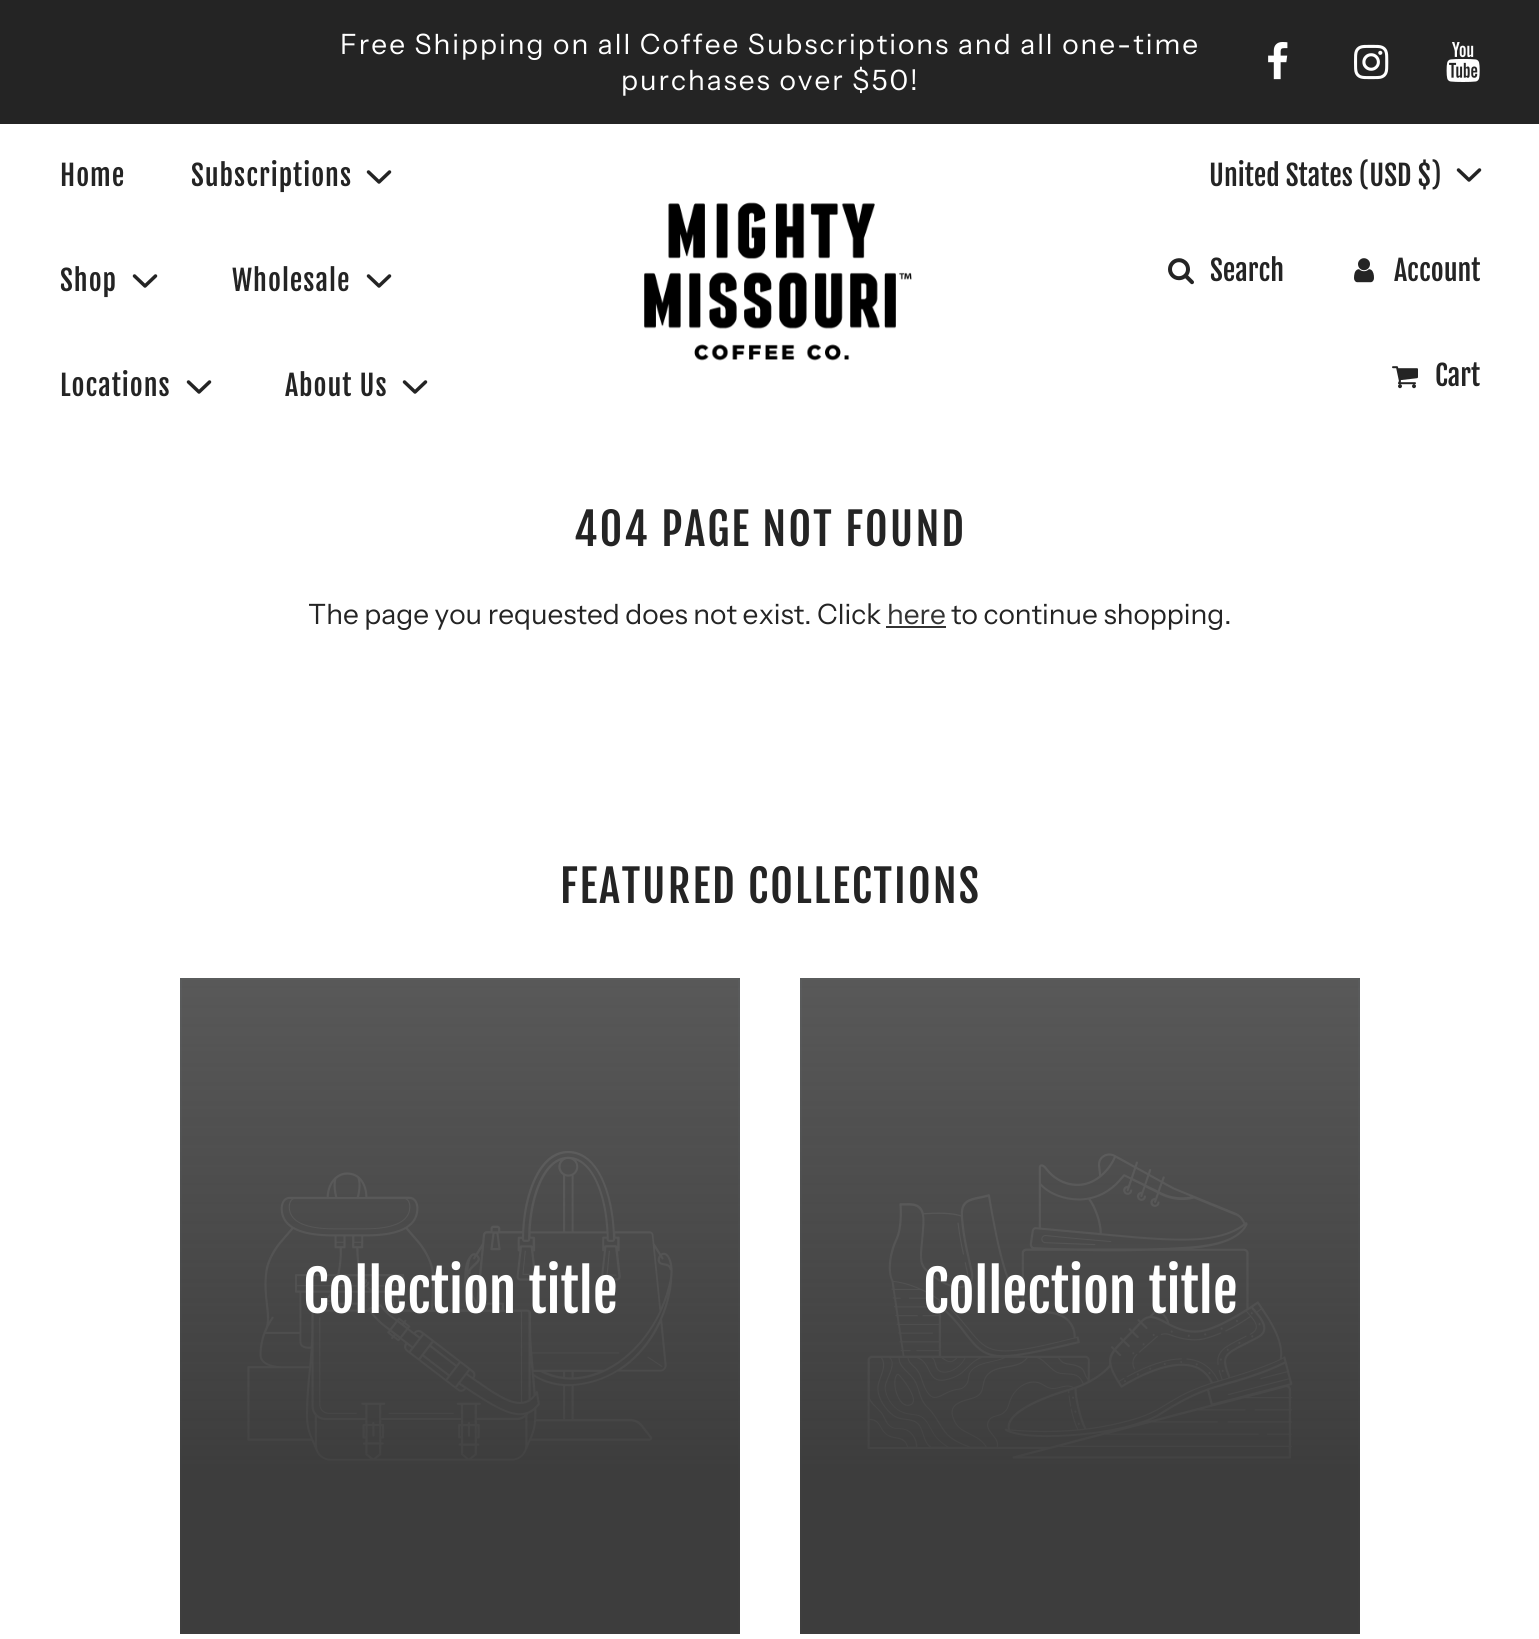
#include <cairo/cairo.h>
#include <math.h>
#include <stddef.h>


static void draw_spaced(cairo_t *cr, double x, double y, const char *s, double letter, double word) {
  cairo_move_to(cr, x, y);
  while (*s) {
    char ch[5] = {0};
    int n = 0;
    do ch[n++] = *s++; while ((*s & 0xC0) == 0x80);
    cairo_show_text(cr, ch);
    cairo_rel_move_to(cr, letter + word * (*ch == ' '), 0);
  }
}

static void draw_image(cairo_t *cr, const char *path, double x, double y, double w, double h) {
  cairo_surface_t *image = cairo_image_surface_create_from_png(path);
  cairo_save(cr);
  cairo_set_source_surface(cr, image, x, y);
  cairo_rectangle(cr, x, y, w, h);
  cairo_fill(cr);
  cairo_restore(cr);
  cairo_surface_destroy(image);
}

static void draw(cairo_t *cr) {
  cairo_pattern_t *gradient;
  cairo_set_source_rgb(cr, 1, 1, 1);
  cairo_paint(cr);
  cairo_set_source_rgb(cr, 36 / 255.0, 36 / 255.0, 36 / 255.0);
  cairo_rectangle(cr, 0, 0, 1539, 124);
  cairo_fill(cr);
  draw_image(cr, "images/1.png", 1268, 42, 20, 38);
  draw_image(cr, "images/2.png", 1354, 44, 35, 36);
  draw_image(cr, "images/3.png", 1446, 42, 34, 40);
  cairo_new_path(cr);
  cairo_move_to(cr, 368.5, 172);
  cairo_line_to(cr, 379, 182);
  cairo_line_to(cr, 389.5, 172);
  cairo_set_line_width(cr, 3.5);
  cairo_set_line_cap(cr, CAIRO_LINE_CAP_ROUND);
  cairo_set_line_join(cr, CAIRO_LINE_JOIN_ROUND);
  cairo_stroke(cr);
  cairo_new_path(cr);
  cairo_move_to(cr, 134.5, 276);
  cairo_line_to(cr, 145, 286);
  cairo_line_to(cr, 155.5, 276);
  cairo_stroke(cr);
  cairo_new_path(cr);
  cairo_move_to(cr, 368.5, 276);
  cairo_line_to(cr, 379, 286);
  cairo_line_to(cr, 389.5, 276);
  cairo_stroke(cr);
  cairo_new_path(cr);
  cairo_move_to(cr, 188.5, 382);
  cairo_line_to(cr, 199, 392);
  cairo_line_to(cr, 209.5, 382);
  cairo_stroke(cr);
  cairo_new_path(cr);
  cairo_move_to(cr, 404.5, 382);
  cairo_line_to(cr, 415, 392);
  cairo_line_to(cr, 425.5, 382);
  cairo_stroke(cr);
  draw_image(cr, "images/4.png", 644, 202, 268, 159);
  cairo_new_path(cr);
  cairo_move_to(cr, 1458.5, 170);
  cairo_line_to(cr, 1469, 180);
  cairo_line_to(cr, 1479.5, 170);
  cairo_stroke(cr);
  draw_image(cr, "images/5.png", 1168, 258, 26, 27);
  draw_image(cr, "images/6.png", 1354, 258, 20, 25);
  draw_image(cr, "images/7.png", 1392, 366, 26, 23);
  cairo_set_source_rgb(cr, 51 / 255.0, 51 / 255.0, 51 / 255.0);
  cairo_rectangle(cr, 886, 626, 60, 2);
  cairo_fill(cr);
  cairo_set_source_rgb(cr, 105 / 255.0, 105 / 255.0, 105 / 255.0);
  cairo_rectangle(cr, 181, 979, 558, 654);
  cairo_fill_preserve(cr);
  cairo_set_source_rgb(cr, 108 / 255.0, 110 / 255.0, 111 / 255.0);
  cairo_set_line_width(cr, 2);
  cairo_set_line_cap(cr, CAIRO_LINE_CAP_BUTT);
  cairo_set_line_join(cr, CAIRO_LINE_JOIN_MITER);
  cairo_stroke(cr);
  draw_image(cr, "images/8.png", 247, 1151, 426, 310);
  gradient = cairo_pattern_create_linear(460, 978, 460, 1634);
  cairo_pattern_add_color_stop_rgba(gradient, 0, 50 / 255.0, 50 / 255.0, 50 / 255.0, 0.3);
  cairo_pattern_add_color_stop_rgba(gradient, 0.75, 50 / 255.0, 50 / 255.0, 50 / 255.0, 0.8);
  cairo_set_source(cr, gradient);
  cairo_pattern_destroy(gradient);
  cairo_rectangle(cr, 180, 978, 560, 656);
  cairo_fill(cr);
  cairo_set_source_rgb(cr, 105 / 255.0, 105 / 255.0, 105 / 255.0);
  cairo_rectangle(cr, 801, 979, 558, 654);
  cairo_fill_preserve(cr);
  cairo_set_source_rgb(cr, 108 / 255.0, 110 / 255.0, 111 / 255.0);
  cairo_stroke(cr);
  draw_image(cr, "images/9.png", 867, 1153, 426, 306);
  gradient = cairo_pattern_create_linear(1080, 978, 1080, 1634);
  cairo_pattern_add_color_stop_rgba(gradient, 0, 50 / 255.0, 50 / 255.0, 50 / 255.0, 0.3);
  cairo_pattern_add_color_stop_rgba(gradient, 0.75, 50 / 255.0, 50 / 255.0, 50 / 255.0, 0.8);
  cairo_set_source(cr, gradient);
  cairo_pattern_destroy(gradient);
  cairo_rectangle(cr, 800, 978, 560, 656);
  cairo_fill(cr);
  cairo_select_font_face(cr, "Instrument Sans", CAIRO_FONT_SLANT_NORMAL, CAIRO_FONT_WEIGHT_NORMAL);
  cairo_set_font_size(cr, 28);
  cairo_set_source_rgb(cr, 1, 1, 1);
  draw_spaced(cr, 340, 54, "Free Shipping on all Coffee Subscriptions and all one-time", 2, 0);
  draw_spaced(cr, 621, 90, "purchases over $50!", 2, 0);
  cairo_select_font_face(cr, "Fjalla One", CAIRO_FONT_SLANT_NORMAL, CAIRO_FONT_WEIGHT_NORMAL);
  cairo_set_source_rgb(cr, 36 / 255.0, 36 / 255.0, 36 / 255.0);
  draw_spaced(cr, 60, 186, "Home", 1, 0);
  draw_spaced(cr, 191, 186, "Subscriptions", 1, 0);
  draw_spaced(cr, 60, 291, "Shop", 1, 0);
  draw_spaced(cr, 232, 291, "Wholesale", 1, 0);
  draw_spaced(cr, 60, 396, "Locations", 1, 0);
  draw_spaced(cr, 285, 396, "About Us", 1, 0);
  cairo_move_to(cr, 1209, 186);
  cairo_show_text(cr, "United States (USD $)");
  cairo_move_to(cr, 1210, 281);
  cairo_show_text(cr, "Search");
  cairo_move_to(cr, 1394, 281);
  cairo_show_text(cr, "Account");
  cairo_move_to(cr, 1435, 386);
  cairo_show_text(cr, "Cart");
  cairo_set_font_size(cr, 44);
  draw_spaced(cr, 574, 546, "404 PAGE NOT FOUND", 2, 0);
  cairo_select_font_face(cr, "Instrument Sans", CAIRO_FONT_SLANT_NORMAL, CAIRO_FONT_WEIGHT_NORMAL);
  cairo_set_font_size(cr, 28);
  cairo_move_to(cr, 308, 624);
  cairo_show_text(cr, "The page you requested does not exist. Click");
  cairo_set_source_rgb(cr, 51 / 255.0, 51 / 255.0, 51 / 255.0);
  cairo_move_to(cr, 887, 624);
  cairo_show_text(cr, "here");
  cairo_set_source_rgb(cr, 36 / 255.0, 36 / 255.0, 36 / 255.0);
  cairo_move_to(cr, 951, 624);
  cairo_show_text(cr, "to continue shopping.");
  cairo_select_font_face(cr, "Fjalla One", CAIRO_FONT_SLANT_NORMAL, CAIRO_FONT_WEIGHT_NORMAL);
  cairo_set_font_size(cr, 44);
  draw_spaced(cr, 560, 903, "FEATURED COLLECTIONS", 2, 0);
  cairo_set_font_size(cr, 56);
  cairo_set_source_rgb(cr, 1, 1, 1);
  cairo_move_to(cr, 303, 1313);
  cairo_show_text(cr, "Collection title");
  cairo_move_to(cr, 923, 1313);
  cairo_show_text(cr, "Collection title");
}

int main(void) {
  cairo_surface_t *surface = cairo_image_surface_create(CAIRO_FORMAT_RGB24, 1539, 1639);
  cairo_t *cr = cairo_create(surface);
  cairo_font_options_t *options = cairo_font_options_create();
  cairo_font_options_set_hint_metrics(options, CAIRO_HINT_METRICS_OFF);
  cairo_font_options_set_hint_style(options, CAIRO_HINT_STYLE_NONE);
  cairo_set_font_options(cr, options);
  cairo_set_miter_limit(cr, 4);
  draw(cr);
  cairo_surface_write_to_png(surface, "out.png");
  cairo_font_options_destroy(options);
  cairo_destroy(cr);
  cairo_surface_destroy(surface);
  return 0;
}
